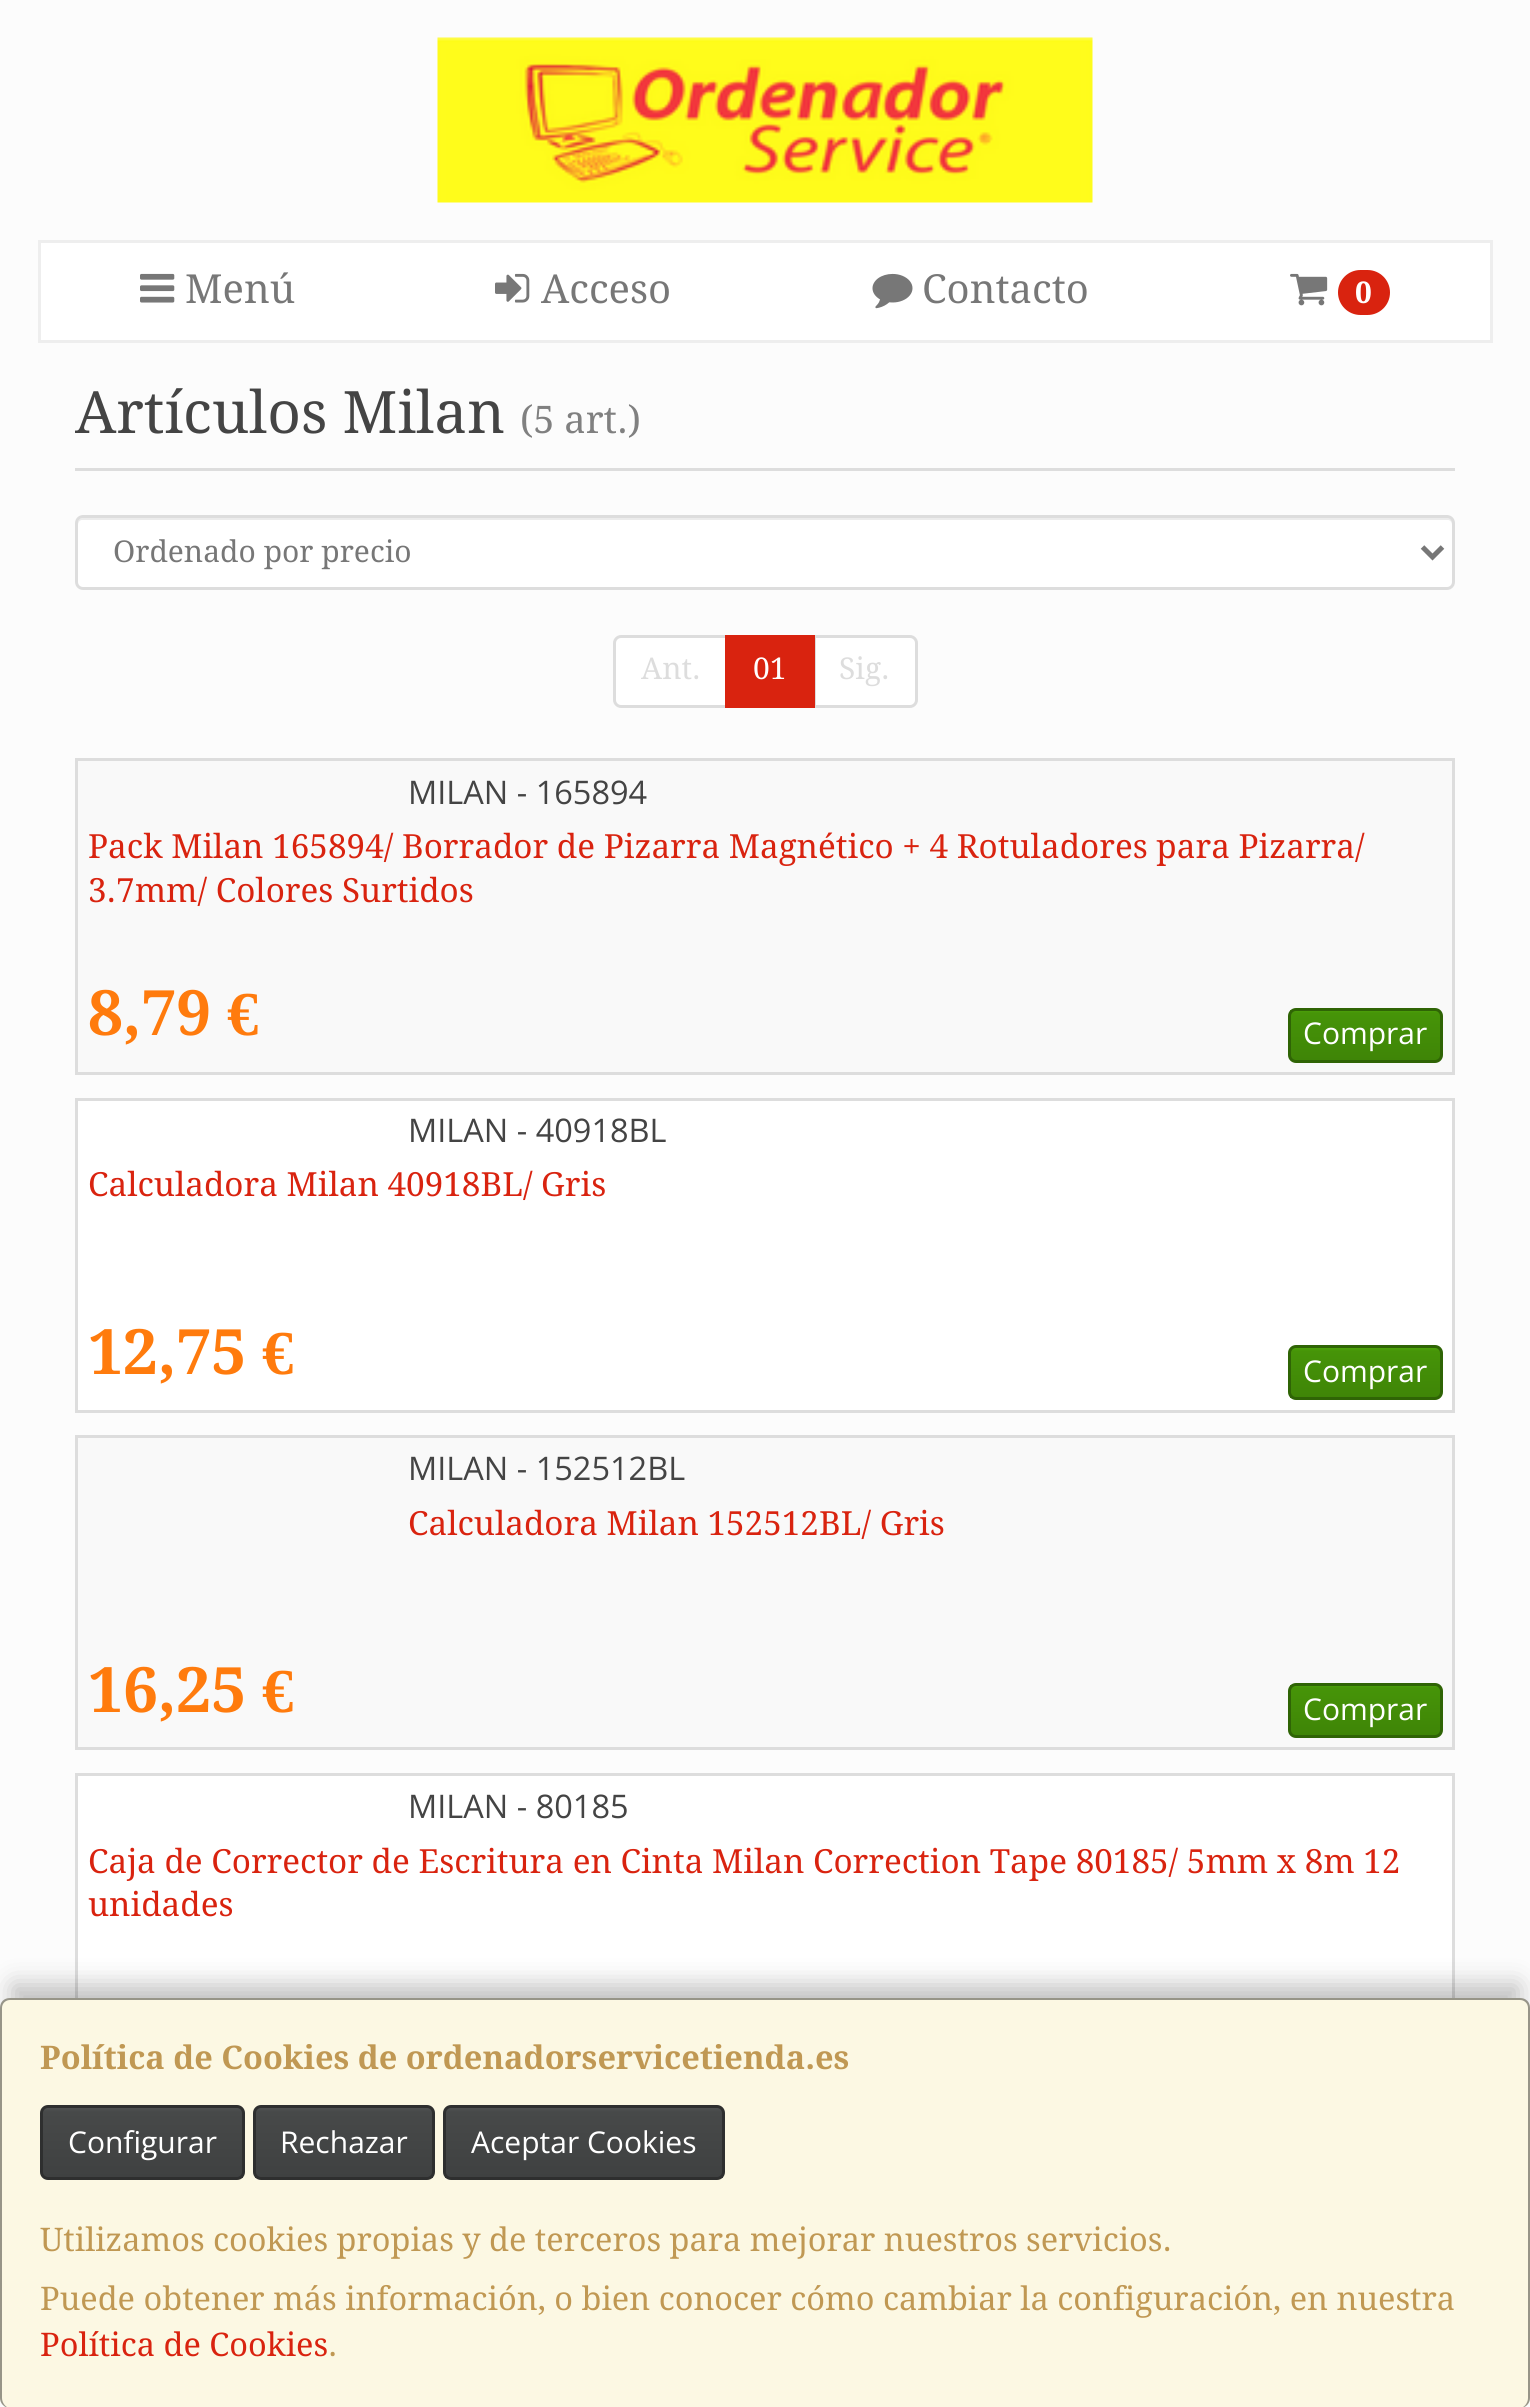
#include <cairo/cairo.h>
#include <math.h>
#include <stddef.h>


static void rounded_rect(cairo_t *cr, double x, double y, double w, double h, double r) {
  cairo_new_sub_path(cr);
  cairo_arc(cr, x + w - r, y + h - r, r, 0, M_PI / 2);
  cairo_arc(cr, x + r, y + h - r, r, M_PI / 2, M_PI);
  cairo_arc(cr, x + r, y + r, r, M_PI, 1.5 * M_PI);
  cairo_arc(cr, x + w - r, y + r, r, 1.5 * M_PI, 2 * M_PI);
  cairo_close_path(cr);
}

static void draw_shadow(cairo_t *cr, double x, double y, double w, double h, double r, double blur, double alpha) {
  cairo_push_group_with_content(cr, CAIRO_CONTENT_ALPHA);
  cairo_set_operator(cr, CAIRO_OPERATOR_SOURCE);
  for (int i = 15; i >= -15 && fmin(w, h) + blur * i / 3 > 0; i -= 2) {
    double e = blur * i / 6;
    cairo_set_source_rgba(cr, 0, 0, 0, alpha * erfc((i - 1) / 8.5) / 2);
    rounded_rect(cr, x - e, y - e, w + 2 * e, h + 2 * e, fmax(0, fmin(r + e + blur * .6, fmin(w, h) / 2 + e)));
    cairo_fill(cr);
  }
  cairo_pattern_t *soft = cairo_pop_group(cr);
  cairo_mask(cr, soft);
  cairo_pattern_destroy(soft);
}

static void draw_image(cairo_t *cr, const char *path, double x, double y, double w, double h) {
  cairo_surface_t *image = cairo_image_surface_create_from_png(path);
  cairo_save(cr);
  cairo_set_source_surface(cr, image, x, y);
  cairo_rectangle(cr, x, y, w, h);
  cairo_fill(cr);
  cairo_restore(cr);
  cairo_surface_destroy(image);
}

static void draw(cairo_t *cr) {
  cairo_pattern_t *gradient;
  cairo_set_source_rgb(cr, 252 / 255.0, 252 / 255.0, 252 / 255.0);
  cairo_paint(cr);
  draw_image(cr, "images/1.png", 437, 37, 656, 166);
  cairo_set_source_rgb(cr, 1, 1, 1);
  cairo_rectangle(cr, 39.5, 241.5, 1452, 100);
  cairo_fill_preserve(cr);
  cairo_set_source_rgb(cr, 238 / 255.0, 238 / 255.0, 238 / 255.0);
  cairo_set_line_width(cr, 3);
  cairo_stroke(cr);
  draw_image(cr, "images/2.png", 140, 273, 35, 30);
  draw_image(cr, "images/3.png", 495, 273, 35, 30);
  draw_image(cr, "images/4.png", 872, 273, 41, 36);
  draw_image(cr, "images/5.png", 1290, 273, 38, 33);
  cairo_set_source_rgb(cr, 217 / 255.0, 35 / 255.0, 15 / 255.0);
  rounded_rect(cr, 1338, 270, 52, 45, 22.5);
  cairo_fill(cr);
  cairo_set_source_rgb(cr, 221 / 255.0, 221 / 255.0, 221 / 255.0);
  cairo_rectangle(cr, 75, 468, 1380, 3);
  cairo_fill(cr);
  cairo_set_source_rgb(cr, 1, 1, 1);
  rounded_rect(cr, 75, 515, 1380, 75, 8);
  cairo_fill(cr);
  cairo_set_source_rgb(cr, 236 / 255.0, 236 / 255.0, 236 / 255.0);
  cairo_new_path(cr);
  cairo_move_to(cr, 82, 520);
  cairo_line_to(cr, 1448, 520);
  cairo_curve_to(cr, 1450, 520, 1452, 522, 1452, 525);
  cairo_line_to(cr, 1452, 586);
  cairo_curve_to(cr, 1453, 585, 1453, 584, 1453, 583);
  cairo_line_to(cr, 1453, 523);
  cairo_curve_to(cr, 1453, 520, 1451, 518, 1448, 518);
  cairo_line_to(cr, 83, 518);
  cairo_curve_to(cr, 80, 518, 78, 520, 78, 523);
  cairo_line_to(cr, 78, 525);
  cairo_curve_to(cr, 78, 522, 80, 520, 82, 520);
  cairo_close_path(cr);
  cairo_fill(cr);
  rounded_rect(cr, 76.5, 516.5, 1377, 72, 6.5);
  cairo_set_source_rgb(cr, 221 / 255.0, 221 / 255.0, 221 / 255.0);
  cairo_stroke(cr);
  cairo_new_path(cr);
  cairo_move_to(cr, 1422.5, 547);
  cairo_line_to(cr, 1432.5, 557);
  cairo_line_to(cr, 1442.5, 547);
  cairo_set_source_rgb(cr, 119 / 255.0, 119 / 255.0, 119 / 255.0);
  cairo_set_line_width(cr, 5);
  cairo_stroke(cr);
  cairo_set_source_rgb(cr, 1, 1, 1);
  cairo_new_path(cr);
  cairo_move_to(cr, 621, 636.5);
  cairo_line_to(cr, 726.5, 636.5);
  cairo_line_to(cr, 726.5, 706.5);
  cairo_line_to(cr, 621, 706.5);
  cairo_curve_to(cr, 617.5, 706.5, 614.5, 703.5, 614.5, 700);
  cairo_line_to(cr, 614.5, 643);
  cairo_curve_to(cr, 614.5, 639.5, 617.5, 636.5, 621, 636.5);
  cairo_close_path(cr);
  cairo_fill_preserve(cr);
  cairo_set_source_rgb(cr, 221 / 255.0, 221 / 255.0, 221 / 255.0);
  cairo_set_line_width(cr, 3);
  cairo_stroke(cr);
  cairo_set_source_rgb(cr, 1, 1, 1);
  cairo_new_path(cr);
  cairo_move_to(cr, 814.5, 636.5);
  cairo_line_to(cr, 910, 636.5);
  cairo_curve_to(cr, 913.5, 636.5, 916.5, 639.5, 916.5, 643);
  cairo_line_to(cr, 916.5, 700);
  cairo_curve_to(cr, 916.5, 703.5, 913.5, 706.5, 910, 706.5);
  cairo_line_to(cr, 814.5, 706.5);
  cairo_close_path(cr);
  cairo_fill_preserve(cr);
  cairo_set_source_rgb(cr, 221 / 255.0, 221 / 255.0, 221 / 255.0);
  cairo_stroke(cr);
  cairo_set_source_rgb(cr, 217 / 255.0, 35 / 255.0, 15 / 255.0);
  cairo_rectangle(cr, 725, 635, 90, 73);
  cairo_fill(cr);
  cairo_set_source_rgb(cr, 249 / 255.0, 249 / 255.0, 249 / 255.0);
  cairo_rectangle(cr, 76.5, 759.5, 1377, 314);
  cairo_fill_preserve(cr);
  cairo_set_source_rgb(cr, 221 / 255.0, 221 / 255.0, 221 / 255.0);
  cairo_stroke(cr);
  gradient = cairo_pattern_create_linear(1365, 1010, 1365, 1060);
  cairo_pattern_add_color_stop_rgba(gradient, 0, 77 / 255.0, 163 / 255.0, 9 / 255.0, 1);
  cairo_pattern_add_color_stop_rgba(gradient, 0.06, 70 / 255.0, 148 / 255.0, 8 / 255.0, 1);
  cairo_pattern_add_color_stop_rgba(gradient, 1, 63 / 255.0, 133 / 255.0, 7 / 255.0, 1);
  cairo_set_source(cr, gradient);
  cairo_pattern_destroy(gradient);
  cairo_rectangle(cr, 1290, 1010, 150, 50);
  cairo_fill(cr);
  rounded_rect(cr, 1289.5, 1009.5, 152, 52, 6.5);
  cairo_set_source_rgb(cr, 47 / 255.0, 100 / 255.0, 5 / 255.0);
  cairo_stroke(cr);
  cairo_set_source_rgb(cr, 1, 1, 1);
  cairo_rectangle(cr, 76.5, 1099.5, 1377, 312);
  cairo_fill_preserve(cr);
  cairo_set_source_rgb(cr, 221 / 255.0, 221 / 255.0, 221 / 255.0);
  cairo_stroke(cr);
  gradient = cairo_pattern_create_linear(1365, 1348, 1365, 1398);
  cairo_pattern_add_color_stop_rgba(gradient, 0, 77 / 255.0, 163 / 255.0, 9 / 255.0, 1);
  cairo_pattern_add_color_stop_rgba(gradient, 0.06, 70 / 255.0, 148 / 255.0, 8 / 255.0, 1);
  cairo_pattern_add_color_stop_rgba(gradient, 1, 63 / 255.0, 133 / 255.0, 7 / 255.0, 1);
  cairo_set_source(cr, gradient);
  cairo_pattern_destroy(gradient);
  cairo_rectangle(cr, 1290, 1348, 150, 50);
  cairo_fill(cr);
  rounded_rect(cr, 1289.5, 1346.5, 152, 52, 6.5);
  cairo_set_source_rgb(cr, 47 / 255.0, 100 / 255.0, 5 / 255.0);
  cairo_stroke(cr);
  cairo_set_source_rgb(cr, 249 / 255.0, 249 / 255.0, 249 / 255.0);
  cairo_rectangle(cr, 76.5, 1436.5, 1377, 312);
  cairo_fill_preserve(cr);
  cairo_set_source_rgb(cr, 221 / 255.0, 221 / 255.0, 221 / 255.0);
  cairo_stroke(cr);
  gradient = cairo_pattern_create_linear(1365, 1685, 1365, 1735);
  cairo_pattern_add_color_stop_rgba(gradient, 0, 77 / 255.0, 163 / 255.0, 9 / 255.0, 1);
  cairo_pattern_add_color_stop_rgba(gradient, 0.06, 70 / 255.0, 148 / 255.0, 8 / 255.0, 1);
  cairo_pattern_add_color_stop_rgba(gradient, 1, 63 / 255.0, 133 / 255.0, 7 / 255.0, 1);
  cairo_set_source(cr, gradient);
  cairo_pattern_destroy(gradient);
  cairo_rectangle(cr, 1290, 1685, 150, 50);
  cairo_fill(cr);
  rounded_rect(cr, 1289.5, 1684.5, 152, 52, 6.5);
  cairo_set_source_rgb(cr, 47 / 255.0, 100 / 255.0, 5 / 255.0);
  cairo_stroke(cr);
  cairo_set_source_rgb(cr, 1, 1, 1);
  cairo_rectangle(cr, 78, 1776, 1374, 222);
  cairo_fill(cr);
  cairo_rectangle(cr, 76.5, 1774.5, 1377, 312);
  cairo_set_source_rgb(cr, 221 / 255.0, 221 / 255.0, 221 / 255.0);
  cairo_stroke(cr);
  cairo_set_source_rgb(cr, 0, 0, 0);
  draw_shadow(cr, 13, 1985, 1505, 385, 0, 12.5, 0.25);
  cairo_set_source_rgb(cr, 252 / 255.0, 248 / 255.0, 227 / 255.0);
  rounded_rect(cr, 0, 1998, 1530, 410, 10);
  cairo_fill(cr);
  cairo_set_source_rgba(cr, 0, 0, 0, 0.4);
  cairo_set_fill_rule(cr, CAIRO_FILL_RULE_EVEN_ODD);
  cairo_new_path(cr);
  cairo_move_to(cr, 10, 1998);
  cairo_line_to(cr, 1520, 1998);
  cairo_curve_to(cr, 1526, 1998, 1530, 2002, 1530, 2008);
  cairo_line_to(cr, 1530, 2398);
  cairo_curve_to(cr, 1530, 2403, 1526, 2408, 1520, 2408);
  cairo_line_to(cr, 10, 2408);
  cairo_curve_to(cr, 4, 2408, 0, 2403, 0, 2398);
  cairo_line_to(cr, 0, 2008);
  cairo_curve_to(cr, 0, 2002, 4, 1998, 10, 1998);
  cairo_close_path(cr);
  cairo_move_to(cr, 10, 2000);
  cairo_line_to(cr, 1520, 2000);
  cairo_curve_to(cr, 1524, 2000, 1528, 2003, 1528, 2008);
  cairo_line_to(cr, 1528, 2398);
  cairo_curve_to(cr, 1528, 2403, 1524, 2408, 1520, 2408);
  cairo_line_to(cr, 10, 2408);
  cairo_curve_to(cr, 6, 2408, 2, 2403, 2, 2398);
  cairo_line_to(cr, 2, 2008);
  cairo_curve_to(cr, 2, 2003, 6, 2000, 10, 2000);
  cairo_close_path(cr);
  cairo_fill(cr);
  gradient = cairo_pattern_create_linear(143, 2108, 143, 2178);
  cairo_pattern_add_color_stop_rgba(gradient, 0, 79 / 255.0, 81 / 255.0, 81 / 255.0, 1);
  cairo_pattern_add_color_stop_rgba(gradient, 0.06, 71 / 255.0, 73 / 255.0, 73 / 255.0, 1);
  cairo_pattern_add_color_stop_rgba(gradient, 1, 63 / 255.0, 65 / 255.0, 65 / 255.0, 1);
  cairo_set_source(cr, gradient);
  cairo_pattern_destroy(gradient);
  cairo_rectangle(cr, 43, 2108, 200, 70);
  cairo_fill(cr);
  rounded_rect(cr, 41.5, 2106.5, 202, 72, 6.5);
  cairo_set_source_rgb(cr, 46 / 255.0, 47 / 255.0, 47 / 255.0);
  cairo_stroke(cr);
  gradient = cairo_pattern_create_linear(344, 2108, 344, 2178);
  cairo_pattern_add_color_stop_rgba(gradient, 0, 79 / 255.0, 81 / 255.0, 81 / 255.0, 1);
  cairo_pattern_add_color_stop_rgba(gradient, 0.06, 71 / 255.0, 73 / 255.0, 73 / 255.0, 1);
  cairo_pattern_add_color_stop_rgba(gradient, 1, 63 / 255.0, 65 / 255.0, 65 / 255.0, 1);
  cairo_set_source(cr, gradient);
  cairo_pattern_destroy(gradient);
  cairo_rectangle(cr, 255, 2108, 178, 70);
  cairo_fill(cr);
  rounded_rect(cr, 254.5, 2106.5, 179, 72, 6.5);
  cairo_set_source_rgb(cr, 46 / 255.0, 47 / 255.0, 47 / 255.0);
  cairo_stroke(cr);
  gradient = cairo_pattern_create_linear(584, 2108, 584, 2178);
  cairo_pattern_add_color_stop_rgba(gradient, 0, 79 / 255.0, 81 / 255.0, 81 / 255.0, 1);
  cairo_pattern_add_color_stop_rgba(gradient, 0.06, 71 / 255.0, 73 / 255.0, 73 / 255.0, 1);
  cairo_pattern_add_color_stop_rgba(gradient, 1, 63 / 255.0, 65 / 255.0, 65 / 255.0, 1);
  cairo_set_source(cr, gradient);
  cairo_pattern_destroy(gradient);
  cairo_rectangle(cr, 445, 2108, 278, 70);
  cairo_fill(cr);
  rounded_rect(cr, 444.5, 2106.5, 279, 72, 6.5);
  cairo_set_source_rgb(cr, 46 / 255.0, 47 / 255.0, 47 / 255.0);
  cairo_stroke(cr);
  cairo_select_font_face(cr, "Droid Serif", CAIRO_FONT_SLANT_NORMAL, CAIRO_FONT_WEIGHT_NORMAL);
  cairo_set_font_size(cr, 40);
  cairo_set_source_rgb(cr, 119 / 255.0, 119 / 255.0, 119 / 255.0);
  cairo_move_to(cr, 185, 303);
  cairo_show_text(cr, "Menú");
  cairo_move_to(cr, 541, 303);
  cairo_show_text(cr, "Acceso");
  cairo_move_to(cr, 922, 303);
  cairo_show_text(cr, "Contacto");
  cairo_select_font_face(cr, "Droid Serif", CAIRO_FONT_SLANT_NORMAL, CAIRO_FONT_WEIGHT_BOLD);
  cairo_set_font_size(cr, 30);
  cairo_set_source_rgb(cr, 1, 1, 1);
  cairo_move_to(cr, 1355, 303);
  cairo_show_text(cr, "0");
  cairo_select_font_face(cr, "Droid Serif", CAIRO_FONT_SLANT_NORMAL, CAIRO_FONT_WEIGHT_NORMAL);
  cairo_set_font_size(cr, 58.5);
  cairo_set_source_rgb(cr, 68 / 255.0, 68 / 255.0, 68 / 255.0);
  cairo_move_to(cr, 75, 433);
  cairo_show_text(cr, "Artículos Milan");
  cairo_set_font_size(cr, 38);
  cairo_set_source_rgb(cr, 128 / 255.0, 128 / 255.0, 128 / 255.0);
  cairo_move_to(cr, 520, 433);
  cairo_show_text(cr, "(5 art.)");
  cairo_set_font_size(cr, 30);
  cairo_set_source_rgb(cr, 119 / 255.0, 119 / 255.0, 119 / 255.0);
  cairo_move_to(cr, 113, 562);
  cairo_show_text(cr, "Ordenado por precio");
  cairo_set_source_rgb(cr, 221 / 255.0, 221 / 255.0, 221 / 255.0);
  cairo_move_to(cr, 641, 679);
  cairo_show_text(cr, "Ant.");
  cairo_set_source_rgb(cr, 1, 1, 1);
  cairo_move_to(cr, 753, 679);
  cairo_show_text(cr, "01");
  cairo_set_source_rgb(cr, 221 / 255.0, 221 / 255.0, 221 / 255.0);
  cairo_move_to(cr, 839, 679);
  cairo_show_text(cr, "Sig.");
  cairo_select_font_face(cr, "Open Sans", CAIRO_FONT_SLANT_NORMAL, CAIRO_FONT_WEIGHT_NORMAL);
  cairo_set_font_size(cr, 32.5);
  cairo_set_source_rgb(cr, 68 / 255.0, 68 / 255.0, 68 / 255.0);
  cairo_move_to(cr, 408, 804);
  cairo_show_text(cr, "MILAN - 165894");
  cairo_select_font_face(cr, "Droid Serif", CAIRO_FONT_SLANT_NORMAL, CAIRO_FONT_WEIGHT_NORMAL);
  cairo_set_font_size(cr, 33.25);
  cairo_set_source_rgb(cr, 217 / 255.0, 35 / 255.0, 15 / 255.0);
  cairo_move_to(cr, 88, 858);
  cairo_show_text(cr, "Pack Milan 165894/ Borrador de Pizarra Magnético + 4 Rotuladores para Pizarra/");
  cairo_move_to(cr, 88, 902);
  cairo_show_text(cr, "3.7mm/ Colores Surtidos");
  cairo_select_font_face(cr, "Droid Serif", CAIRO_FONT_SLANT_NORMAL, CAIRO_FONT_WEIGHT_BOLD);
  cairo_set_font_size(cr, 62.5);
  cairo_set_source_rgb(cr, 1, 123 / 255.0, 13 / 255.0);
  cairo_move_to(cr, 88, 1035);
  cairo_show_text(cr, "8,79");
  cairo_select_font_face(cr, "Liberation Serif", CAIRO_FONT_SLANT_NORMAL, CAIRO_FONT_WEIGHT_BOLD);
  cairo_move_to(cr, 227, 1035);
  cairo_show_text(cr, "€");
  cairo_select_font_face(cr, "Open Sans", CAIRO_FONT_SLANT_NORMAL, CAIRO_FONT_WEIGHT_NORMAL);
  cairo_set_font_size(cr, 30);
  cairo_set_source_rgb(cr, 1, 1, 1);
  cairo_move_to(cr, 1303, 1044);
  cairo_show_text(cr, "Comprar");
  cairo_set_font_size(cr, 32.5);
  cairo_set_source_rgb(cr, 68 / 255.0, 68 / 255.0, 68 / 255.0);
  cairo_move_to(cr, 408, 1142);
  cairo_show_text(cr, "MILAN - 40918BL");
  cairo_select_font_face(cr, "Droid Serif", CAIRO_FONT_SLANT_NORMAL, CAIRO_FONT_WEIGHT_NORMAL);
  cairo_set_font_size(cr, 33.25);
  cairo_set_source_rgb(cr, 217 / 255.0, 35 / 255.0, 15 / 255.0);
  cairo_move_to(cr, 88, 1196);
  cairo_show_text(cr, "Calculadora Milan 40918BL/ Gris");
  cairo_select_font_face(cr, "Droid Serif", CAIRO_FONT_SLANT_NORMAL, CAIRO_FONT_WEIGHT_BOLD);
  cairo_set_font_size(cr, 62.5);
  cairo_set_source_rgb(cr, 1, 123 / 255.0, 13 / 255.0);
  cairo_move_to(cr, 88, 1374);
  cairo_show_text(cr, "12,75");
  cairo_select_font_face(cr, "Liberation Serif", CAIRO_FONT_SLANT_NORMAL, CAIRO_FONT_WEIGHT_BOLD);
  cairo_move_to(cr, 262, 1374);
  cairo_show_text(cr, "€");
  cairo_select_font_face(cr, "Open Sans", CAIRO_FONT_SLANT_NORMAL, CAIRO_FONT_WEIGHT_NORMAL);
  cairo_set_font_size(cr, 30);
  cairo_set_source_rgb(cr, 1, 1, 1);
  cairo_move_to(cr, 1303, 1382);
  cairo_show_text(cr, "Comprar");
  cairo_set_font_size(cr, 32.5);
  cairo_set_source_rgb(cr, 68 / 255.0, 68 / 255.0, 68 / 255.0);
  cairo_move_to(cr, 408, 1480);
  cairo_show_text(cr, "MILAN - 152512BL");
  cairo_select_font_face(cr, "Droid Serif", CAIRO_FONT_SLANT_NORMAL, CAIRO_FONT_WEIGHT_NORMAL);
  cairo_set_font_size(cr, 33.25);
  cairo_set_source_rgb(cr, 217 / 255.0, 35 / 255.0, 15 / 255.0);
  cairo_move_to(cr, 408, 1535);
  cairo_show_text(cr, "Calculadora Milan 152512BL/ Gris");
  cairo_select_font_face(cr, "Droid Serif", CAIRO_FONT_SLANT_NORMAL, CAIRO_FONT_WEIGHT_BOLD);
  cairo_set_font_size(cr, 62.5);
  cairo_set_source_rgb(cr, 1, 123 / 255.0, 13 / 255.0);
  cairo_move_to(cr, 88, 1712);
  cairo_show_text(cr, "16,25");
  cairo_select_font_face(cr, "Liberation Serif", CAIRO_FONT_SLANT_NORMAL, CAIRO_FONT_WEIGHT_BOLD);
  cairo_move_to(cr, 262, 1712);
  cairo_show_text(cr, "€");
  cairo_select_font_face(cr, "Open Sans", CAIRO_FONT_SLANT_NORMAL, CAIRO_FONT_WEIGHT_NORMAL);
  cairo_set_font_size(cr, 30);
  cairo_set_source_rgb(cr, 1, 1, 1);
  cairo_move_to(cr, 1303, 1720);
  cairo_show_text(cr, "Comprar");
  cairo_set_font_size(cr, 32.5);
  cairo_set_source_rgb(cr, 68 / 255.0, 68 / 255.0, 68 / 255.0);
  cairo_move_to(cr, 408, 1818);
  cairo_show_text(cr, "MILAN - 80185");
  cairo_select_font_face(cr, "Droid Serif", CAIRO_FONT_SLANT_NORMAL, CAIRO_FONT_WEIGHT_NORMAL);
  cairo_set_font_size(cr, 33.25);
  cairo_set_source_rgb(cr, 217 / 255.0, 35 / 255.0, 15 / 255.0);
  cairo_move_to(cr, 88, 1873);
  cairo_show_text(cr, "Caja de Corrector de Escritura en Cinta Milan Correction Tape 80185/ 5mm x 8m 12");
  cairo_move_to(cr, 88, 1916);
  cairo_show_text(cr, "unidades");
  cairo_select_font_face(cr, "Droid Serif", CAIRO_FONT_SLANT_NORMAL, CAIRO_FONT_WEIGHT_BOLD);
  cairo_set_font_size(cr, 32.5);
  cairo_set_source_rgb(cr, 192 / 255.0, 152 / 255.0, 83 / 255.0);
  cairo_move_to(cr, 40, 2069);
  cairo_show_text(cr, "Política de Cookies de ordenadorservicetienda.es");
  cairo_select_font_face(cr, "Open Sans", CAIRO_FONT_SLANT_NORMAL, CAIRO_FONT_WEIGHT_NORMAL);
  cairo_set_font_size(cr, 30);
  cairo_set_source_rgb(cr, 1, 1, 1);
  cairo_move_to(cr, 68, 2153);
  cairo_show_text(cr, "Configurar");
  cairo_move_to(cr, 280, 2153);
  cairo_show_text(cr, "Rechazar");
  cairo_move_to(cr, 471, 2153);
  cairo_show_text(cr, "Aceptar Cookies");
  cairo_select_font_face(cr, "Droid Serif", CAIRO_FONT_SLANT_NORMAL, CAIRO_FONT_WEIGHT_NORMAL);
  cairo_set_font_size(cr, 32.5);
  cairo_set_source_rgb(cr, 192 / 255.0, 152 / 255.0, 83 / 255.0);
  cairo_move_to(cr, 40, 2251);
  cairo_show_text(cr, "Utilizamos cookies propias y de terceros para mejorar nuestros servicios.");
  cairo_move_to(cr, 40, 2310);
  cairo_show_text(cr, "Puede obtener más información, o bien conocer cómo cambiar la configuración, en nuestra");
  cairo_set_source_rgb(cr, 217 / 255.0, 35 / 255.0, 15 / 255.0);
  cairo_move_to(cr, 40, 2356);
  cairo_show_text(cr, "Política de Cookies");
  cairo_set_source_rgb(cr, 192 / 255.0, 152 / 255.0, 83 / 255.0);
  cairo_move_to(cr, 328, 2356);
  cairo_show_text(cr, ".");
}

int main(void) {
  cairo_surface_t *surface = cairo_image_surface_create(CAIRO_FORMAT_RGB24, 1530, 2407);
  cairo_t *cr = cairo_create(surface);
  cairo_font_options_t *options = cairo_font_options_create();
  cairo_font_options_set_hint_metrics(options, CAIRO_HINT_METRICS_OFF);
  cairo_font_options_set_hint_style(options, CAIRO_HINT_STYLE_NONE);
  cairo_set_font_options(cr, options);
  cairo_set_miter_limit(cr, 4);
  draw(cr);
  cairo_surface_write_to_png(surface, "out.png");
  cairo_font_options_destroy(options);
  cairo_destroy(cr);
  cairo_surface_destroy(surface);
  return 0;
}
